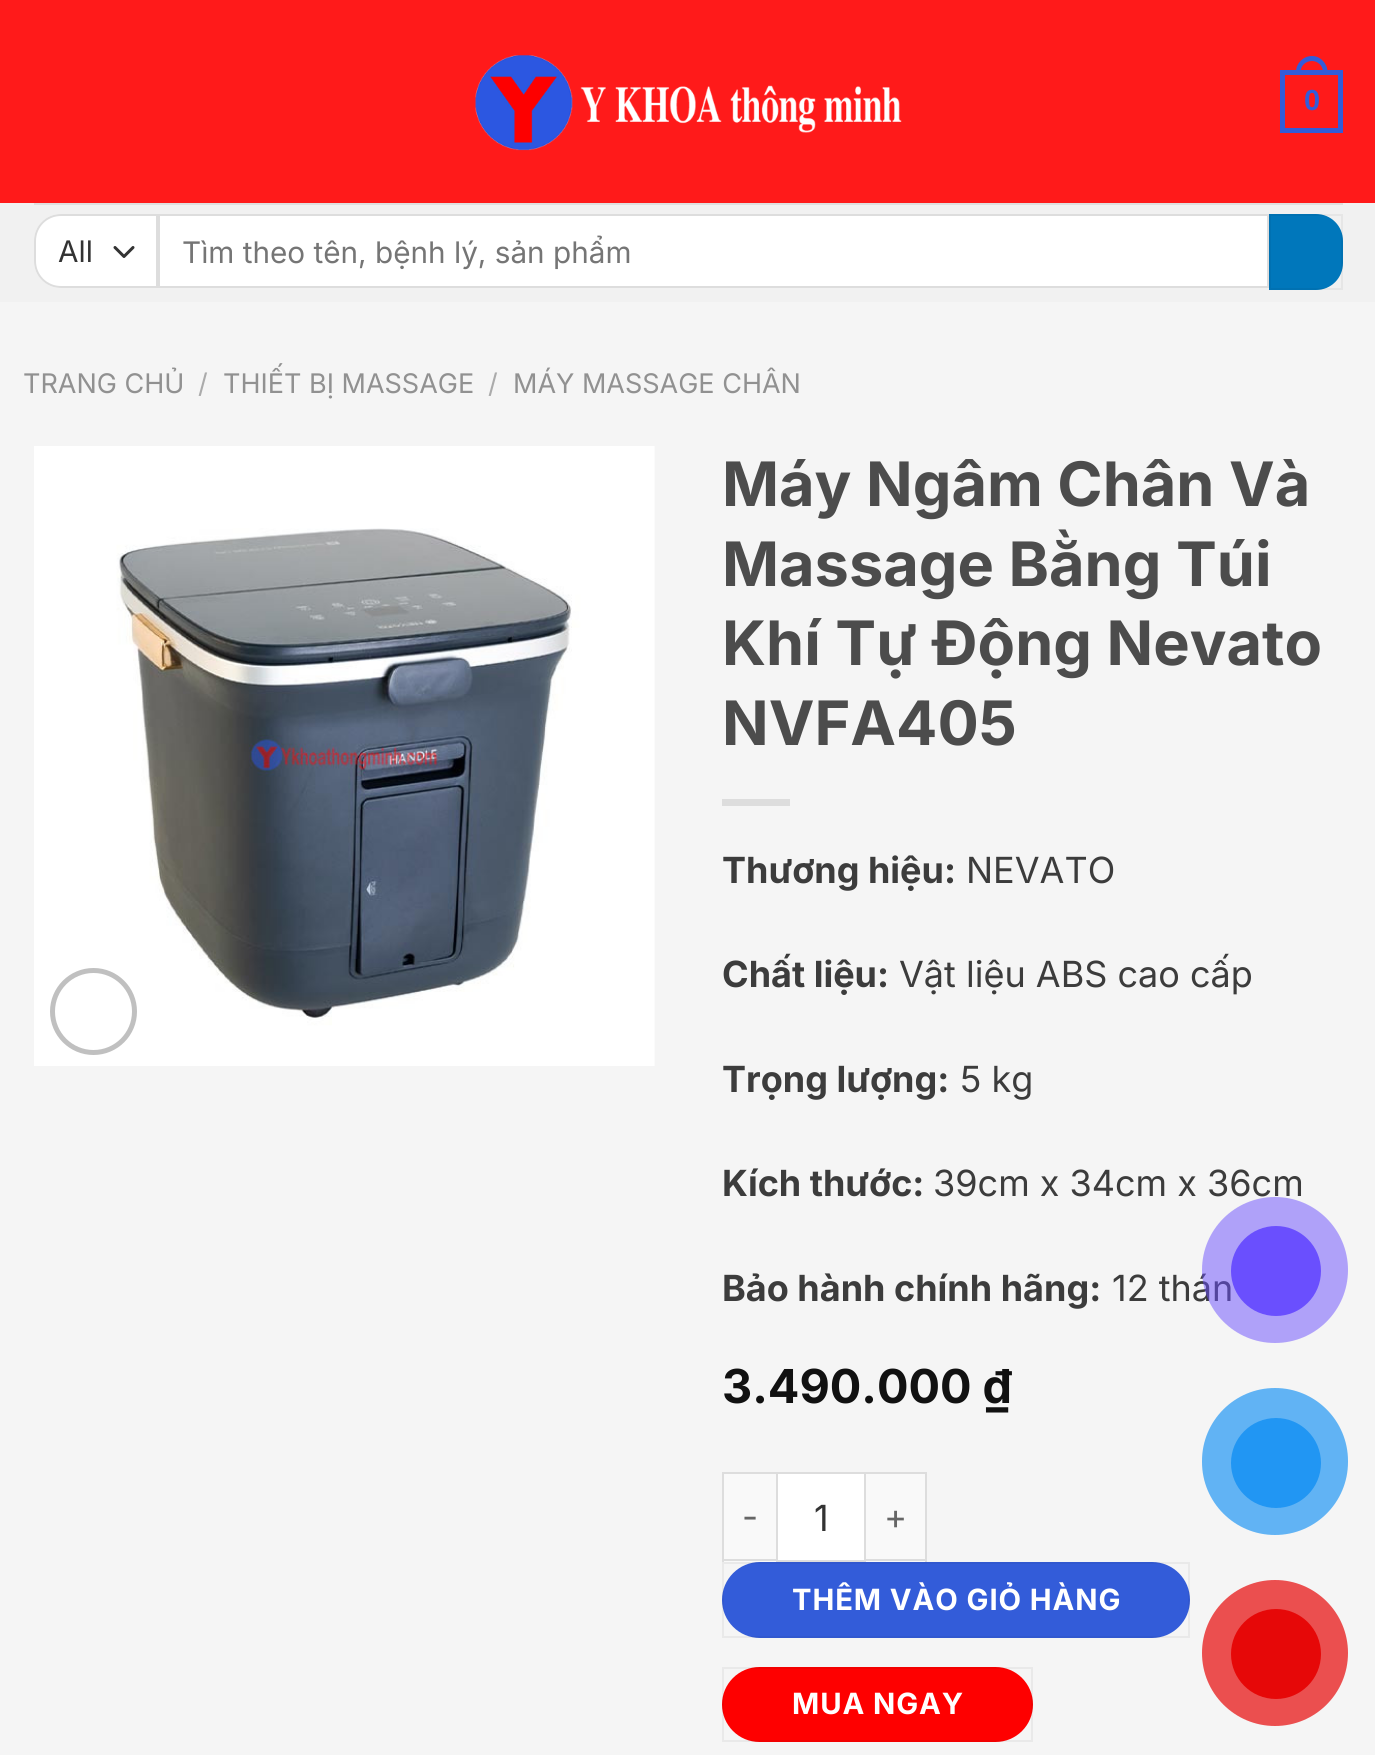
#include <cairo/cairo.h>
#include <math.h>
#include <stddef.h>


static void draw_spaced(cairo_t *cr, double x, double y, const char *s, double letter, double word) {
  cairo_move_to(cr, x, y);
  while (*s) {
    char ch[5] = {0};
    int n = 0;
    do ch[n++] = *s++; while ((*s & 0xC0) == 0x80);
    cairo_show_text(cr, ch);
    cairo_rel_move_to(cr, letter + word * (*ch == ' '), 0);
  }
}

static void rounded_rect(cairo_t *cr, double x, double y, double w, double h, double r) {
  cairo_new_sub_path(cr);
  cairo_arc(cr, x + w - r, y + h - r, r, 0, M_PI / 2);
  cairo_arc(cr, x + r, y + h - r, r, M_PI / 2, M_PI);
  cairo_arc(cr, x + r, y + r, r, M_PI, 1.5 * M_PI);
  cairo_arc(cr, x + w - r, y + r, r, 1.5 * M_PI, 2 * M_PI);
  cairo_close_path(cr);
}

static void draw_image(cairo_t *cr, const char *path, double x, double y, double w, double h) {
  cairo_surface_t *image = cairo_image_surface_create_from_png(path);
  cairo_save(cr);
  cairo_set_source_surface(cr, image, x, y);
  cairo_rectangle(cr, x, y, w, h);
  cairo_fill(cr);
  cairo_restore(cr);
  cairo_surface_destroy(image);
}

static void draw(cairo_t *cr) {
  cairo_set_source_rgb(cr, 245 / 255.0, 245 / 255.0, 245 / 255.0);
  cairo_paint(cr);
  cairo_set_source_rgb(cr, 1, 26 / 255.0, 26 / 255.0);
  cairo_rectangle(cr, 0, 0, 1375, 203);
  cairo_fill(cr);
  draw_image(cr, "images/1.png", 475, 55, 427, 96);
  cairo_rectangle(cr, 1282.5, 72.5, 58, 58);
  cairo_set_source_rgb(cr, 51 / 255.0, 92 / 255.0, 217 / 255.0);
  cairo_set_line_width(cr, 5);
  cairo_stroke(cr);
  cairo_set_fill_rule(cr, CAIRO_FILL_RULE_EVEN_ODD);
  cairo_new_path(cr);
  cairo_move_to(cr, 1312, 56);
  cairo_curve_to(cr, 1320.5, 56, 1327.5, 63.5, 1327.5, 72);
  cairo_line_to(cr, 1327.5, 74);
  cairo_line_to(cr, 1296, 74);
  cairo_line_to(cr, 1296, 72);
  cairo_curve_to(cr, 1296, 63.5, 1303, 56, 1312, 56);
  cairo_close_path(cr);
  cairo_move_to(cr, 1312, 61);
  cairo_curve_to(cr, 1318, 61, 1323, 66, 1323, 72);
  cairo_line_to(cr, 1323, 74);
  cairo_line_to(cr, 1300.5, 74);
  cairo_line_to(cr, 1300.5, 72);
  cairo_curve_to(cr, 1300.5, 66, 1305.5, 61, 1312, 61);
  cairo_close_path(cr);
  cairo_fill(cr);
  cairo_set_source_rgb(cr, 241 / 255.0, 241 / 255.0, 241 / 255.0);
  cairo_rectangle(cr, 0, 203, 1375, 99);
  cairo_fill(cr);
  cairo_set_source_rgb(cr, 223 / 255.0, 223 / 255.0, 223 / 255.0);
  cairo_rectangle(cr, 34, 203, 1309, 2);
  cairo_fill(cr);
  cairo_set_source_rgb(cr, 1, 1, 1);
  cairo_new_path(cr);
  cairo_move_to(cr, 61, 214);
  cairo_line_to(cr, 158, 214);
  cairo_line_to(cr, 158, 288);
  cairo_line_to(cr, 61, 288);
  cairo_curve_to(cr, 46, 288, 34, 276, 34, 261);
  cairo_line_to(cr, 34, 241);
  cairo_curve_to(cr, 34, 226, 46, 214, 61, 214);
  cairo_close_path(cr);
  cairo_fill(cr);
  cairo_new_path(cr);
  cairo_move_to(cr, 115, 247.5);
  cairo_line_to(cr, 124, 256.5);
  cairo_line_to(cr, 133, 247.5);
  cairo_set_source_rgb(cr, 51 / 255.0, 51 / 255.0, 51 / 255.0);
  cairo_set_line_width(cr, 3);
  cairo_set_line_cap(cr, CAIRO_LINE_CAP_ROUND);
  cairo_set_line_join(cr, CAIRO_LINE_JOIN_ROUND);
  cairo_stroke(cr);
  cairo_new_path(cr);
  cairo_move_to(cr, 61, 215);
  cairo_line_to(cr, 157, 215);
  cairo_line_to(cr, 157, 287);
  cairo_line_to(cr, 61, 287);
  cairo_curve_to(cr, 46.5, 287, 35, 275.5, 35, 261);
  cairo_line_to(cr, 35, 241);
  cairo_curve_to(cr, 35, 226.5, 46.5, 215, 61, 215);
  cairo_close_path(cr);
  cairo_set_source_rgb(cr, 221 / 255.0, 221 / 255.0, 221 / 255.0);
  cairo_set_line_width(cr, 2);
  cairo_set_line_cap(cr, CAIRO_LINE_CAP_BUTT);
  cairo_set_line_join(cr, CAIRO_LINE_JOIN_MITER);
  cairo_stroke(cr);
  cairo_set_source_rgb(cr, 1, 1, 1);
  cairo_rectangle(cr, 159, 215, 1109, 72);
  cairo_fill_preserve(cr);
  cairo_set_source_rgb(cr, 221 / 255.0, 221 / 255.0, 221 / 255.0);
  cairo_stroke(cr);
  cairo_set_source_rgb(cr, 0, 119 / 255.0, 187 / 255.0);
  cairo_new_path(cr);
  cairo_move_to(cr, 1269, 214);
  cairo_line_to(cr, 1316, 214);
  cairo_curve_to(cr, 1331, 214, 1343, 226, 1343, 241);
  cairo_line_to(cr, 1343, 263);
  cairo_curve_to(cr, 1343, 278, 1331, 290, 1316, 290);
  cairo_line_to(cr, 1269, 290);
  cairo_close_path(cr);
  cairo_fill(cr);
  cairo_rectangle(cr, 1270, 215, 72, 74);
  cairo_set_source_rgba(cr, 0, 0, 0, 0.05);
  cairo_stroke(cr);
  draw_image(cr, "images/2.png", 34, 446, 621, 620);
  cairo_arc(cr, 93.5, 1011.5, 41, 0, 2 * M_PI);
  cairo_set_source_rgb(cr, 192 / 255.0, 192 / 255.0, 192 / 255.0);
  cairo_set_line_width(cr, 5);
  cairo_stroke(cr);
  cairo_set_source_rgb(cr, 221 / 255.0, 221 / 255.0, 221 / 255.0);
  cairo_rectangle(cr, 722, 799, 68, 7);
  cairo_fill(cr);
  cairo_set_source_rgb(cr, 249 / 255.0, 249 / 255.0, 249 / 255.0);
  cairo_rectangle(cr, 724, 1474, 52, 88);
  cairo_fill(cr);
  cairo_set_source_rgb(cr, 221 / 255.0, 221 / 255.0, 221 / 255.0);
  cairo_rectangle(cr, 722, 1472, 54, 2);
  cairo_fill(cr);
  cairo_rectangle(cr, 722, 1559, 54, 2);
  cairo_fill(cr);
  cairo_rectangle(cr, 722, 1472, 2, 90);
  cairo_fill(cr);
  cairo_set_source_rgb(cr, 1, 1, 1);
  cairo_rectangle(cr, 777, 1473, 88, 88);
  cairo_fill_preserve(cr);
  cairo_set_source_rgb(cr, 221 / 255.0, 221 / 255.0, 221 / 255.0);
  cairo_set_line_width(cr, 2);
  cairo_stroke(cr);
  cairo_set_source_rgb(cr, 249 / 255.0, 249 / 255.0, 249 / 255.0);
  cairo_rectangle(cr, 866, 1474, 59, 88);
  cairo_fill(cr);
  cairo_set_source_rgb(cr, 221 / 255.0, 221 / 255.0, 221 / 255.0);
  cairo_rectangle(cr, 866, 1472, 61, 2);
  cairo_fill(cr);
  cairo_rectangle(cr, 925, 1472, 2, 90);
  cairo_fill(cr);
  cairo_rectangle(cr, 866, 1559, 61, 2);
  cairo_fill(cr);
  cairo_set_source_rgb(cr, 51 / 255.0, 92 / 255.0, 217 / 255.0);
  rounded_rect(cr, 722, 1562, 468, 76, 38);
  cairo_fill(cr);
  cairo_rectangle(cr, 723, 1563, 466, 74);
  cairo_set_source_rgba(cr, 0, 0, 0, 0.05);
  cairo_stroke(cr);
  cairo_set_source_rgb(cr, 254 / 255.0, 0, 0);
  rounded_rect(cr, 722, 1667, 311, 75, 37.5);
  cairo_fill(cr);
  cairo_rectangle(cr, 723, 1668, 309, 73);
  cairo_set_source_rgba(cr, 0, 0, 0, 0.05);
  cairo_stroke(cr);
  cairo_set_source_rgb(cr, 97 / 255.0, 179 / 255.0, 244 / 255.0);
  rounded_rect(cr, 1202, 1388, 146, 147, 73);
  cairo_fill(cr);
  cairo_set_source_rgb(cr, 33 / 255.0, 150 / 255.0, 243 / 255.0);
  cairo_arc(cr, 1276, 1463, 45, 0, 2 * M_PI);
  cairo_fill(cr);
  cairo_set_source_rgb(cr, 235 / 255.0, 79 / 255.0, 79 / 255.0);
  cairo_arc(cr, 1275, 1653, 73, 0, 2 * M_PI);
  cairo_fill(cr);
  cairo_set_source_rgb(cr, 230 / 255.0, 8 / 255.0, 8 / 255.0);
  cairo_arc(cr, 1276, 1654, 45, 0, 2 * M_PI);
  cairo_fill(cr);
  cairo_select_font_face(cr, "Liberation Sans", CAIRO_FONT_SLANT_NORMAL, CAIRO_FONT_WEIGHT_BOLD);
  cairo_set_font_size(cr, 29);
  cairo_set_source_rgb(cr, 51 / 255.0, 92 / 255.0, 217 / 255.0);
  cairo_move_to(cr, 1304, 110);
  cairo_show_text(cr, "0");
  cairo_select_font_face(cr, "Inter", CAIRO_FONT_SLANT_NORMAL, CAIRO_FONT_WEIGHT_NORMAL);
  cairo_set_font_size(cr, 29.7);
  cairo_set_source_rgb(cr, 51 / 255.0, 51 / 255.0, 51 / 255.0);
  cairo_move_to(cr, 58, 262);
  cairo_show_text(cr, "All");
  cairo_set_source_rgb(cr, 117 / 255.0, 117 / 255.0, 117 / 255.0);
  cairo_move_to(cr, 182, 263);
  cairo_show_text(cr, "Tìm theo tên, bệnh lý, sản phẩm");
  cairo_set_font_size(cr, 27);
  cairo_set_source_rgb(cr, 145 / 255.0, 145 / 255.0, 145 / 255.0);
  cairo_move_to(cr, 23, 393);
  cairo_show_text(cr, "TRANG CHỦ");
  cairo_set_source_rgb(cr, 171 / 255.0, 171 / 255.0, 171 / 255.0);
  cairo_move_to(cr, 198, 393);
  cairo_show_text(cr, "/");
  cairo_set_source_rgb(cr, 145 / 255.0, 145 / 255.0, 145 / 255.0);
  cairo_move_to(cr, 223, 393);
  cairo_show_text(cr, "THIẾT BỊ MASSAGE");
  cairo_set_source_rgb(cr, 171 / 255.0, 171 / 255.0, 171 / 255.0);
  cairo_move_to(cr, 488, 393);
  cairo_show_text(cr, "/");
  cairo_set_source_rgb(cr, 145 / 255.0, 145 / 255.0, 145 / 255.0);
  cairo_move_to(cr, 513, 393);
  cairo_show_text(cr, "MÁY MASSAGE CHÂN");
  cairo_select_font_face(cr, "Inter", CAIRO_FONT_SLANT_NORMAL, CAIRO_FONT_WEIGHT_BOLD);
  cairo_set_font_size(cr, 61.25);
  cairo_set_source_rgb(cr, 76 / 255.0, 76 / 255.0, 76 / 255.0);
  cairo_move_to(cr, 722, 506);
  cairo_show_text(cr, "Máy Ngâm Chân Và");
  cairo_move_to(cr, 722, 586);
  cairo_show_text(cr, "Massage Bằng Túi");
  cairo_move_to(cr, 722, 665);
  cairo_show_text(cr, "Khí Tự Động Nevato");
  cairo_move_to(cr, 722, 745);
  cairo_show_text(cr, "NVFA405");
  cairo_set_font_size(cr, 36);
  cairo_set_source_rgb(cr, 60 / 255.0, 60 / 255.0, 60 / 255.0);
  cairo_move_to(cr, 722, 883);
  cairo_show_text(cr, "Thương hiệu:");
  cairo_select_font_face(cr, "Inter", CAIRO_FONT_SLANT_NORMAL, CAIRO_FONT_WEIGHT_NORMAL);
  cairo_move_to(cr, 966, 883);
  cairo_show_text(cr, "NEVATO");
  cairo_select_font_face(cr, "Inter", CAIRO_FONT_SLANT_NORMAL, CAIRO_FONT_WEIGHT_BOLD);
  cairo_move_to(cr, 722, 987);
  cairo_show_text(cr, "Chất liệu:");
  cairo_select_font_face(cr, "Inter", CAIRO_FONT_SLANT_NORMAL, CAIRO_FONT_WEIGHT_NORMAL);
  cairo_move_to(cr, 899, 987);
  cairo_show_text(cr, "Vật liệu ABS cao cấp");
  cairo_select_font_face(cr, "Inter", CAIRO_FONT_SLANT_NORMAL, CAIRO_FONT_WEIGHT_BOLD);
  cairo_move_to(cr, 722, 1092);
  cairo_show_text(cr, "Trọng lượng:");
  cairo_select_font_face(cr, "Inter", CAIRO_FONT_SLANT_NORMAL, CAIRO_FONT_WEIGHT_NORMAL);
  cairo_move_to(cr, 960, 1092);
  cairo_show_text(cr, "5 kg");
  cairo_select_font_face(cr, "Inter", CAIRO_FONT_SLANT_NORMAL, CAIRO_FONT_WEIGHT_BOLD);
  cairo_move_to(cr, 722, 1196);
  cairo_show_text(cr, "Kích thước:");
  cairo_select_font_face(cr, "Inter", CAIRO_FONT_SLANT_NORMAL, CAIRO_FONT_WEIGHT_NORMAL);
  cairo_move_to(cr, 933, 1196);
  cairo_show_text(cr, "39cm x 34cm x 36cm");
  cairo_select_font_face(cr, "Inter", CAIRO_FONT_SLANT_NORMAL, CAIRO_FONT_WEIGHT_BOLD);
  cairo_move_to(cr, 722, 1301);
  cairo_show_text(cr, "Bảo hành chính hãng:");
  cairo_select_font_face(cr, "Inter", CAIRO_FONT_SLANT_NORMAL, CAIRO_FONT_WEIGHT_NORMAL);
  cairo_move_to(cr, 1112, 1301);
  cairo_show_text(cr, "12 thán");
  cairo_select_font_face(cr, "Inter", CAIRO_FONT_SLANT_NORMAL, CAIRO_FONT_WEIGHT_BOLD);
  cairo_set_font_size(cr, 46.75);
  cairo_set_source_rgb(cr, 17 / 255.0, 17 / 255.0, 17 / 255.0);
  cairo_move_to(cr, 722, 1403);
  cairo_show_text(cr, "3.490.000 ₫");
  cairo_select_font_face(cr, "Inter", CAIRO_FONT_SLANT_NORMAL, CAIRO_FONT_WEIGHT_NORMAL);
  cairo_set_font_size(cr, 35);
  cairo_set_source_rgb(cr, 102 / 255.0, 102 / 255.0, 102 / 255.0);
  draw_spaced(cr, 742, 1529, "-", 1, 0);
  cairo_set_font_size(cr, 36);
  cairo_set_source_rgb(cr, 51 / 255.0, 51 / 255.0, 51 / 255.0);
  cairo_move_to(cr, 814, 1531);
  cairo_show_text(cr, "1");
  cairo_set_font_size(cr, 35);
  cairo_set_source_rgb(cr, 102 / 255.0, 102 / 255.0, 102 / 255.0);
  draw_spaced(cr, 884, 1529, "+", 1, 0);
  cairo_select_font_face(cr, "Inter", CAIRO_FONT_SLANT_NORMAL, CAIRO_FONT_WEIGHT_BOLD);
  cairo_set_font_size(cr, 29.25);
  cairo_set_source_rgb(cr, 1, 1, 1);
  draw_spaced(cr, 792, 1610, "THÊM VÀO GIỎ HÀNG", 0.9, 0);
  draw_spaced(cr, 792, 1714, "MUA NGAY", 0.9, 0);
  cairo_set_source_rgba(cr, 106 / 255.0, 79 / 255.0, 254 / 255.0, 0.5);
  cairo_new_path(cr);
  cairo_arc(cr, 1275, 1270, 73, 0, 2 * M_PI);
  cairo_fill(cr);
  cairo_set_source_rgb(cr, 106 / 255.0, 79 / 255.0, 254 / 255.0);
  cairo_arc(cr, 1276, 1271, 45, 0, 2 * M_PI);
  cairo_fill(cr);
}

int main(void) {
  cairo_surface_t *surface = cairo_image_surface_create(CAIRO_FORMAT_RGB24, 1375, 1755);
  cairo_t *cr = cairo_create(surface);
  cairo_font_options_t *options = cairo_font_options_create();
  cairo_font_options_set_hint_metrics(options, CAIRO_HINT_METRICS_OFF);
  cairo_font_options_set_hint_style(options, CAIRO_HINT_STYLE_NONE);
  cairo_set_font_options(cr, options);
  cairo_set_miter_limit(cr, 4);
  draw(cr);
  cairo_surface_write_to_png(surface, "out.png");
  cairo_font_options_destroy(options);
  cairo_destroy(cr);
  cairo_surface_destroy(surface);
  return 0;
}
